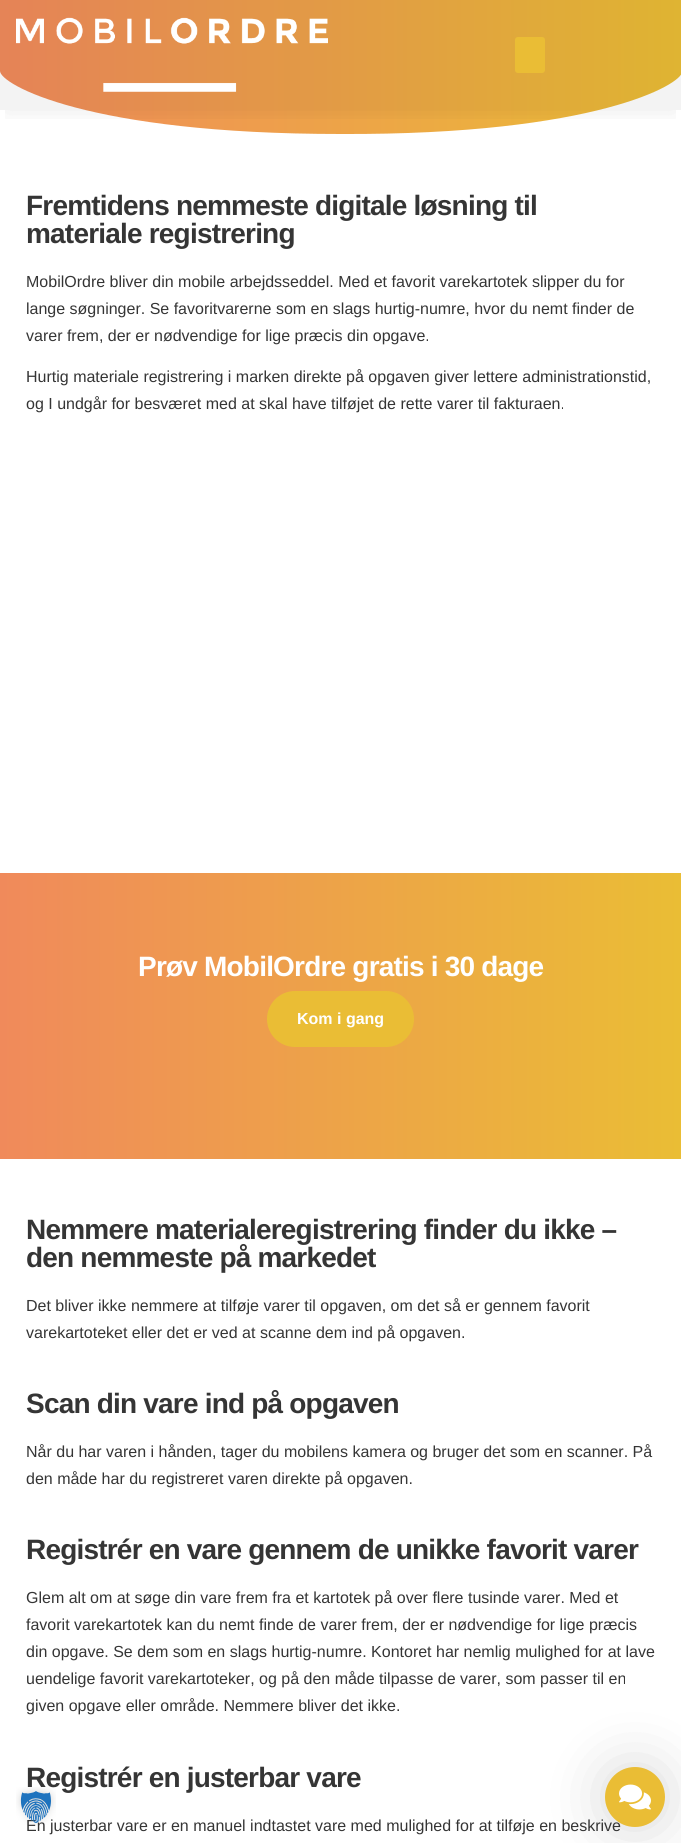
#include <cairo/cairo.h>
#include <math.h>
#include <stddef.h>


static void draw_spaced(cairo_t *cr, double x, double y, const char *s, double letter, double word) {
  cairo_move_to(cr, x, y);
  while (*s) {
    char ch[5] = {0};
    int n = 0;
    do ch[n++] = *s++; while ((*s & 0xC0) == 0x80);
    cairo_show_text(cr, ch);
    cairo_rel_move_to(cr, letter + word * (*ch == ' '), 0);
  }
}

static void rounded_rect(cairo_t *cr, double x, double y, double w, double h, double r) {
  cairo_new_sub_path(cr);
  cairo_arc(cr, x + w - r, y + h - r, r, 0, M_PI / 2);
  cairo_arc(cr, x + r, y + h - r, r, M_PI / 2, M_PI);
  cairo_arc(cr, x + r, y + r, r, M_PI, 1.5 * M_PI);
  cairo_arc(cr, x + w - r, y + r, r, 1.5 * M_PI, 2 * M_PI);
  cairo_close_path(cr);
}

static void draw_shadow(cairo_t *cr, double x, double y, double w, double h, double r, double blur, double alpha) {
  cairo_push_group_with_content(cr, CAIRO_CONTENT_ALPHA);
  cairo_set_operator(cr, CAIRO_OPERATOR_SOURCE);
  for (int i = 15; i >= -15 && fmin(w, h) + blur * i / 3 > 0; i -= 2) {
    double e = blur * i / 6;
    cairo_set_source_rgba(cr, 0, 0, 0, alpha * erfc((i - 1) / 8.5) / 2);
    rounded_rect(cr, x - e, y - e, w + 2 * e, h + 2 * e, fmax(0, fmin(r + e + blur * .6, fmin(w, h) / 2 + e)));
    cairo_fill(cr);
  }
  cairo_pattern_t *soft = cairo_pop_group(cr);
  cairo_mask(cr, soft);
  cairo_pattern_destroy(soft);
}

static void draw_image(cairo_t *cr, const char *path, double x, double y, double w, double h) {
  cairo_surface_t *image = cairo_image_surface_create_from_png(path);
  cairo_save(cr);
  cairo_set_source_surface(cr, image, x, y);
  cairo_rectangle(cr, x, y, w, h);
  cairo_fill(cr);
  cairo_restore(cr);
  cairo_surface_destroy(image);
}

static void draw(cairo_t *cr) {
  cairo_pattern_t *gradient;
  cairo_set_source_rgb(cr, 1, 1, 1);
  cairo_paint(cr);
  gradient = cairo_pattern_create_linear(0, 55, 681, 55);
  cairo_pattern_add_color_stop_rgba(gradient, 0, 240 / 255.0, 138 / 255.0, 91 / 255.0, 1);
  cairo_pattern_add_color_stop_rgba(gradient, 1, 234 / 255.0, 189 / 255.0, 53 / 255.0, 1);
  cairo_set_source(cr, gradient);
  cairo_pattern_destroy(gradient);
  cairo_rectangle(cr, 0, 0, 681, 134);
  cairo_fill(cr);
  cairo_set_source_rgb(cr, 1, 1, 1);
  cairo_new_path(cr);
  cairo_move_to(cr, 341, 134);
  cairo_curve_to(cr, 86, 134, 0, 84, 0, 71);
  cairo_line_to(cr, 0, 136);
  cairo_line_to(cr, 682, 136);
  cairo_line_to(cr, 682, 72);
  cairo_curve_to(cr, 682, 84, 596, 135, 341, 134);
  cairo_close_path(cr);
  cairo_fill(cr);
  cairo_save(cr);
  cairo_rectangle(cr, 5, 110, 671, 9);
  cairo_clip(cr);
  cairo_set_source_rgb(cr, 0, 0, 0);
  draw_shadow(cr, 5, 9, 671, 100, 0, 13, 0.09);
  cairo_restore(cr);
  cairo_set_source_rgba(cr, 0, 0, 0, 0.05);
  cairo_rectangle(cr, 0, 0, 681, 110);
  cairo_fill(cr);
  draw_image(cr, "images/1.png", 16, 17, 312, 75);
  cairo_set_source_rgb(cr, 234 / 255.0, 189 / 255.0, 53 / 255.0);
  rounded_rect(cr, 515, 37, 30, 36, 3);
  cairo_fill(cr);
  gradient = cairo_pattern_create_linear(0, 1016, 681, 1016);
  cairo_pattern_add_color_stop_rgba(gradient, 0, 240 / 255.0, 138 / 255.0, 91 / 255.0, 1);
  cairo_pattern_add_color_stop_rgba(gradient, 1, 234 / 255.0, 189 / 255.0, 53 / 255.0, 1);
  cairo_set_source(cr, gradient);
  cairo_pattern_destroy(gradient);
  cairo_rectangle(cr, 0, 873, 681, 286);
  cairo_fill(cr);
  cairo_set_source_rgb(cr, 234 / 255.0, 189 / 255.0, 53 / 255.0);
  rounded_rect(cr, 267, 991, 147, 56, 28);
  cairo_fill(cr);
  cairo_set_source_rgb(cr, 0, 0, 0);
  draw_shadow(cr, 605, 1767, 60, 60, 30, 30, 0.15);
  cairo_select_font_face(cr, "Liberation Sans", CAIRO_FONT_SLANT_NORMAL, CAIRO_FONT_WEIGHT_BOLD);
  cairo_set_font_size(cr, 28);
  cairo_set_source_rgb(cr, 53 / 255.0, 53 / 255.0, 53 / 255.0);
  draw_spaced(cr, 26, 215, "Fremtidens nemmeste digitale løsning til", -0.8, 0);
  draw_spaced(cr, 26, 243, "materiale registrering", -0.8, 0);
  cairo_select_font_face(cr, "Liberation Sans", CAIRO_FONT_SLANT_NORMAL, CAIRO_FONT_WEIGHT_NORMAL);
  cairo_set_font_size(cr, 16);
  cairo_move_to(cr, 26, 287);
  cairo_show_text(cr, "MobilOrdre bliver din mobile arbejdsseddel. Med et favorit varekartotek slipper du for");
  cairo_move_to(cr, 26, 314);
  cairo_show_text(cr, "lange søgninger. Se favoritvarerne som en slags hurtig-numre, hvor du nemt finder de");
  cairo_move_to(cr, 26, 341);
  cairo_show_text(cr, "varer frem, der er nødvendige for lige præcis din opgave.");
  cairo_move_to(cr, 26, 382);
  cairo_show_text(cr, "Hurtig materiale registrering i marken direkte på opgaven giver lettere administrationstid,");
  cairo_move_to(cr, 26, 409);
  cairo_show_text(cr, "og I undgår for besværet med at skal have tilføjet de rette varer til fakturaen.");
  cairo_select_font_face(cr, "Liberation Sans", CAIRO_FONT_SLANT_NORMAL, CAIRO_FONT_WEIGHT_BOLD);
  cairo_set_font_size(cr, 28);
  cairo_set_source_rgb(cr, 1, 1, 1);
  draw_spaced(cr, 138, 976, "Prøv MobilOrdre gratis i 30 dage", -0.8, 0);
  cairo_set_font_size(cr, 16);
  cairo_move_to(cr, 297, 1024);
  cairo_show_text(cr, "Kom i gang");
  cairo_set_font_size(cr, 28);
  cairo_set_source_rgb(cr, 53 / 255.0, 53 / 255.0, 53 / 255.0);
  draw_spaced(cr, 26, 1239, "Nemmere materialeregistrering finder du ikke –", -0.8, 0);
  draw_spaced(cr, 26, 1267, "den nemmeste på markedet", -0.8, 0);
  cairo_select_font_face(cr, "Liberation Sans", CAIRO_FONT_SLANT_NORMAL, CAIRO_FONT_WEIGHT_NORMAL);
  cairo_set_font_size(cr, 16);
  cairo_move_to(cr, 26, 1311);
  cairo_show_text(cr, "Det bliver ikke nemmere at tilføje varer til opgaven, om det så er gennem favorit");
  cairo_move_to(cr, 26, 1338);
  cairo_show_text(cr, "varekartoteket eller det er ved at scanne dem ind på opgaven.");
  cairo_select_font_face(cr, "Liberation Sans", CAIRO_FONT_SLANT_NORMAL, CAIRO_FONT_WEIGHT_BOLD);
  cairo_set_font_size(cr, 28);
  draw_spaced(cr, 26, 1413, "Scan din vare ind på opgaven", -0.8, 0);
  cairo_select_font_face(cr, "Liberation Sans", CAIRO_FONT_SLANT_NORMAL, CAIRO_FONT_WEIGHT_NORMAL);
  cairo_set_font_size(cr, 16);
  cairo_move_to(cr, 26, 1457);
  cairo_show_text(cr, "Når du har varen i hånden, tager du mobilens kamera og bruger det som en scanner. På");
  cairo_move_to(cr, 26, 1484);
  cairo_show_text(cr, "den måde har du registreret varen direkte på opgaven.");
  cairo_select_font_face(cr, "Liberation Sans", CAIRO_FONT_SLANT_NORMAL, CAIRO_FONT_WEIGHT_BOLD);
  cairo_set_font_size(cr, 28);
  draw_spaced(cr, 26, 1559, "Registrér en vare gennem de unikke favorit varer", -0.8, 0);
  cairo_select_font_face(cr, "Liberation Sans", CAIRO_FONT_SLANT_NORMAL, CAIRO_FONT_WEIGHT_NORMAL);
  cairo_set_font_size(cr, 16);
  cairo_move_to(cr, 26, 1603);
  cairo_show_text(cr, "Glem alt om at søge din vare frem fra et kartotek på over flere tusinde varer. Med et");
  cairo_move_to(cr, 26, 1630);
  cairo_show_text(cr, "favorit varekartotek kan du nemt finde de varer frem, der er nødvendige for lige præcis");
  cairo_move_to(cr, 26, 1657);
  cairo_show_text(cr, "din opgave. Se dem som en slags hurtig-numre. Kontoret har nemlig mulighed for at lave");
  cairo_move_to(cr, 26, 1684);
  cairo_show_text(cr, "uendelige favorit varekartoteker, og på den måde tilpasse de varer, som passer til en");
  cairo_move_to(cr, 26, 1711);
  cairo_show_text(cr, "given opgave eller område. Nemmere bliver det ikke.");
  cairo_select_font_face(cr, "Liberation Sans", CAIRO_FONT_SLANT_NORMAL, CAIRO_FONT_WEIGHT_BOLD);
  cairo_set_font_size(cr, 28);
  draw_spaced(cr, 26, 1787, "Registrér en justerbar vare", -0.8, 0);
  cairo_select_font_face(cr, "Liberation Sans", CAIRO_FONT_SLANT_NORMAL, CAIRO_FONT_WEIGHT_NORMAL);
  cairo_set_font_size(cr, 16);
  cairo_move_to(cr, 26, 1831);
  cairo_show_text(cr, "En justerbar vare er en manuel indtastet vare med mulighed for at tilføje en beskrive");
  draw_image(cr, "images/2.png", 16, 1787, 40, 38);
  cairo_set_source_rgb(cr, 234 / 255.0, 189 / 255.0, 53 / 255.0);
  cairo_arc(cr, 635, 1797, 30, 0, 2 * M_PI);
  cairo_fill(cr);
  draw_image(cr, "images/3.png", 619, 1784, 32, 26);
}

int main(void) {
  cairo_surface_t *surface = cairo_image_surface_create(CAIRO_FORMAT_RGB24, 681, 1843);
  cairo_t *cr = cairo_create(surface);
  cairo_font_options_t *options = cairo_font_options_create();
  cairo_font_options_set_hint_metrics(options, CAIRO_HINT_METRICS_OFF);
  cairo_font_options_set_hint_style(options, CAIRO_HINT_STYLE_NONE);
  cairo_set_font_options(cr, options);
  cairo_set_miter_limit(cr, 4);
  draw(cr);
  cairo_surface_write_to_png(surface, "out.png");
  cairo_font_options_destroy(options);
  cairo_destroy(cr);
  cairo_surface_destroy(surface);
  return 0;
}
